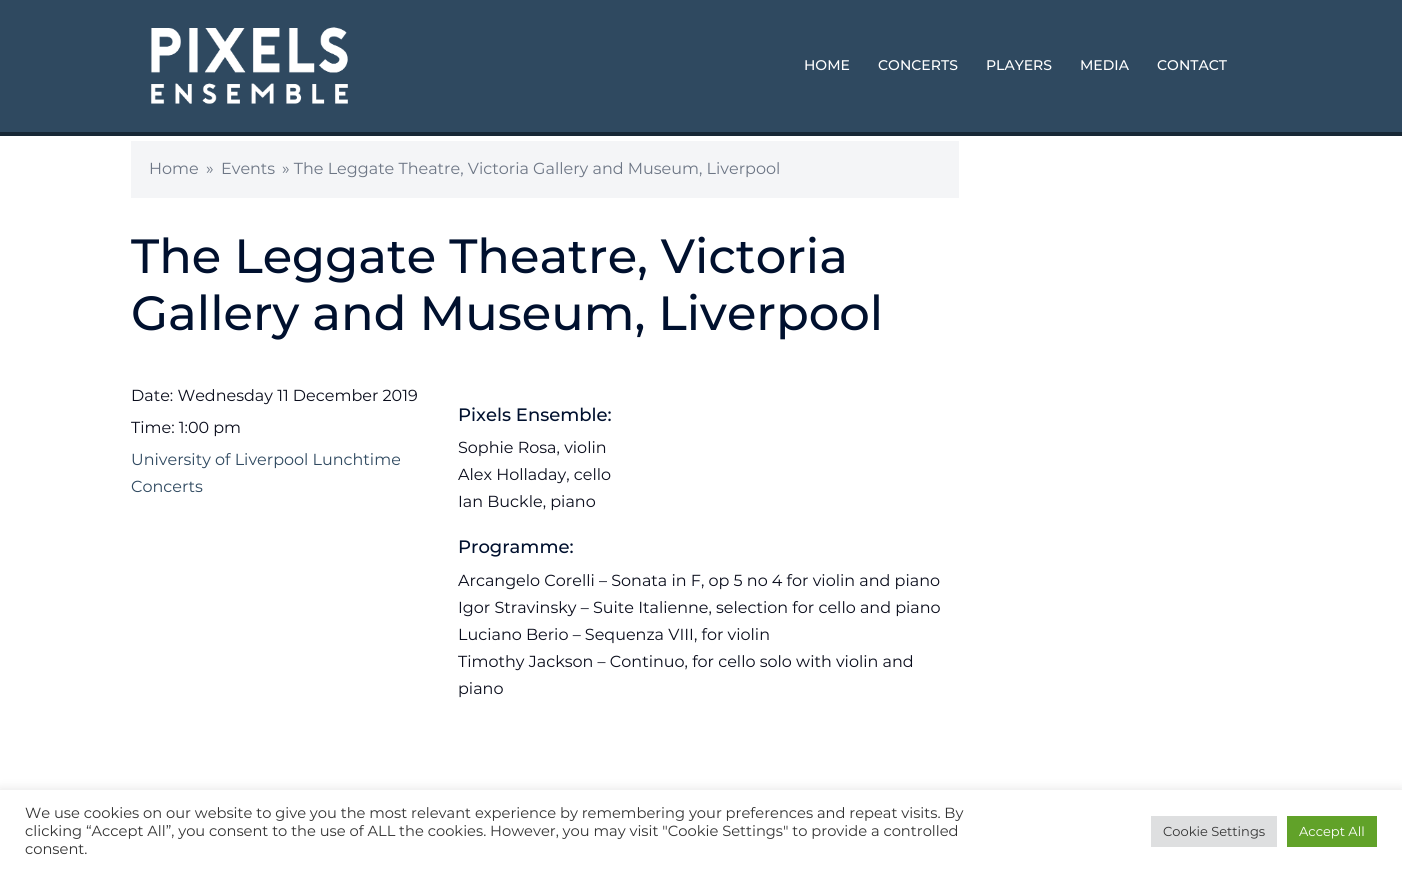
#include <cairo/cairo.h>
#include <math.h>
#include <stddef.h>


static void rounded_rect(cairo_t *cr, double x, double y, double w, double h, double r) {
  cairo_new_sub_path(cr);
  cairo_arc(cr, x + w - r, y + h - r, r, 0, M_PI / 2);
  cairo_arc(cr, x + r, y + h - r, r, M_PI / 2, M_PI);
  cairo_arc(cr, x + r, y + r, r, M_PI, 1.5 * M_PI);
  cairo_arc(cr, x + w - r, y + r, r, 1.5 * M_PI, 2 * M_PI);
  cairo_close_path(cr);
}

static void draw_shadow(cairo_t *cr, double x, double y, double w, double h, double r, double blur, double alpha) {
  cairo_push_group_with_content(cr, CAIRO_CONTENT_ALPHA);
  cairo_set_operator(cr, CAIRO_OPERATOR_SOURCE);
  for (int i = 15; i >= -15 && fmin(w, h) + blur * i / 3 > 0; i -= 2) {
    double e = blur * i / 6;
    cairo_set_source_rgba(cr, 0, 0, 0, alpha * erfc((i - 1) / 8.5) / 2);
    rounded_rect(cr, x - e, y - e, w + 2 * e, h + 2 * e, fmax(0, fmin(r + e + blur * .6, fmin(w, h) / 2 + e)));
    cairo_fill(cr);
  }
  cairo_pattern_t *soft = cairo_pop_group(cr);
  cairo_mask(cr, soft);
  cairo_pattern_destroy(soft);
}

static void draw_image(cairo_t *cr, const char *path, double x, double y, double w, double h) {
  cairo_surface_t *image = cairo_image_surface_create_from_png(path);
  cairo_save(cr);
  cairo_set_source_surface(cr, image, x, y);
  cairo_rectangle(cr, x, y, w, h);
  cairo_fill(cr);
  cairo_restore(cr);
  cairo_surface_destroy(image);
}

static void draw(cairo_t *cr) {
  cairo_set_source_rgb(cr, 1, 1, 1);
  cairo_paint(cr);
  cairo_set_source_rgb(cr, 47 / 255.0, 73 / 255.0, 96 / 255.0);
  cairo_rectangle(cr, 0, 0, 1402, 132);
  cairo_fill(cr);
  cairo_set_source_rgb(cr, 23 / 255.0, 39 / 255.0, 53 / 255.0);
  cairo_rectangle(cr, 0, 132, 1402, 4);
  cairo_fill(cr);
  draw_image(cr, "images/1.png", 151, 27, 197, 77);
  cairo_set_source_rgb(cr, 244 / 255.0, 245 / 255.0, 247 / 255.0);
  cairo_rectangle(cr, 131, 141, 828, 57);
  cairo_fill(cr);
  cairo_set_source_rgb(cr, 172 / 255.0, 171 / 255.0, 171 / 255.0);
  draw_shadow(cr, 0, 789, 1402, 82, 0, 5, 0.3);
  cairo_set_source_rgb(cr, 1, 1, 1);
  cairo_rectangle(cr, 0, 790, 1402, 82);
  cairo_fill(cr);
  cairo_set_source_rgb(cr, 222 / 255.0, 223 / 255.0, 224 / 255.0);
  cairo_rectangle(cr, 1151, 816, 126, 31);
  cairo_fill(cr);
  cairo_set_source_rgb(cr, 97 / 255.0, 162 / 255.0, 41 / 255.0);
  cairo_rectangle(cr, 1287, 816, 90, 31);
  cairo_fill(cr);
  cairo_select_font_face(cr, "Montserrat Medium", CAIRO_FONT_SLANT_NORMAL, CAIRO_FONT_WEIGHT_NORMAL);
  cairo_set_font_size(cr, 14);
  cairo_set_source_rgb(cr, 1, 1, 1);
  cairo_move_to(cr, 804, 70);
  cairo_show_text(cr, "HOME");
  cairo_move_to(cr, 878, 70);
  cairo_show_text(cr, "CONCERTS");
  cairo_move_to(cr, 986, 70);
  cairo_show_text(cr, "PLAYERS");
  cairo_move_to(cr, 1080, 70);
  cairo_show_text(cr, "MEDIA");
  cairo_move_to(cr, 1157, 70);
  cairo_show_text(cr, "CONTACT");
  cairo_select_font_face(cr, "Montserrat", CAIRO_FONT_SLANT_NORMAL, CAIRO_FONT_WEIGHT_NORMAL);
  cairo_set_font_size(cr, 16);
  cairo_set_source_rgb(cr, 109 / 255.0, 118 / 255.0, 133 / 255.0);
  cairo_move_to(cr, 149, 174);
  cairo_show_text(cr, "Home");
  cairo_move_to(cr, 206, 174);
  cairo_show_text(cr, "»");
  cairo_move_to(cr, 221, 174);
  cairo_show_text(cr, "Events");
  cairo_move_to(cr, 282, 174);
  cairo_show_text(cr, "» The Leggate Theatre, Victoria Gallery and Museum, Liverpool");
  cairo_select_font_face(cr, "Montserrat Medium", CAIRO_FONT_SLANT_NORMAL, CAIRO_FONT_WEIGHT_NORMAL);
  cairo_set_font_size(cr, 48);
  cairo_set_source_rgb(cr, 0, 16 / 255.0, 46 / 255.0);
  cairo_move_to(cr, 131, 273);
  cairo_show_text(cr, "The Leggate Theatre, Victoria");
  cairo_move_to(cr, 131, 330);
  cairo_show_text(cr, "Gallery and Museum, Liverpool");
  cairo_select_font_face(cr, "Montserrat", CAIRO_FONT_SLANT_NORMAL, CAIRO_FONT_WEIGHT_NORMAL);
  cairo_set_font_size(cr, 16);
  cairo_set_source_rgb(cr, 10 / 255.0, 13 / 255.0, 28 / 255.0);
  cairo_move_to(cr, 131, 401);
  cairo_show_text(cr, "Date: Wednesday 11 December 2019");
  cairo_move_to(cr, 131, 433);
  cairo_show_text(cr, "Time: 1:00 pm");
  cairo_set_source_rgb(cr, 47 / 255.0, 73 / 255.0, 96 / 255.0);
  cairo_move_to(cr, 131, 465);
  cairo_show_text(cr, "University of Liverpool Lunchtime");
  cairo_move_to(cr, 131, 492);
  cairo_show_text(cr, "Concerts");
  cairo_select_font_face(cr, "Montserrat Medium", CAIRO_FONT_SLANT_NORMAL, CAIRO_FONT_WEIGHT_NORMAL);
  cairo_set_font_size(cr, 18);
  cairo_set_source_rgb(cr, 0, 16 / 255.0, 46 / 255.0);
  cairo_move_to(cr, 458, 421);
  cairo_show_text(cr, "Pixels Ensemble:");
  cairo_select_font_face(cr, "Montserrat", CAIRO_FONT_SLANT_NORMAL, CAIRO_FONT_WEIGHT_NORMAL);
  cairo_set_font_size(cr, 16);
  cairo_set_source_rgb(cr, 10 / 255.0, 13 / 255.0, 28 / 255.0);
  cairo_move_to(cr, 458, 453);
  cairo_show_text(cr, "Sophie Rosa, violin");
  cairo_move_to(cr, 458, 480);
  cairo_show_text(cr, "Alex Holladay, cello");
  cairo_move_to(cr, 458, 507);
  cairo_show_text(cr, "Ian Buckle, piano");
  cairo_select_font_face(cr, "Montserrat Medium", CAIRO_FONT_SLANT_NORMAL, CAIRO_FONT_WEIGHT_NORMAL);
  cairo_set_font_size(cr, 18);
  cairo_set_source_rgb(cr, 0, 16 / 255.0, 46 / 255.0);
  cairo_move_to(cr, 458, 553);
  cairo_show_text(cr, "Programme:");
  cairo_select_font_face(cr, "Montserrat", CAIRO_FONT_SLANT_NORMAL, CAIRO_FONT_WEIGHT_NORMAL);
  cairo_set_font_size(cr, 16);
  cairo_set_source_rgb(cr, 10 / 255.0, 13 / 255.0, 28 / 255.0);
  cairo_move_to(cr, 458, 586);
  cairo_show_text(cr, "Arcangelo Corelli – Sonata in F, op 5 no 4 for violin and piano");
  cairo_move_to(cr, 458, 613);
  cairo_show_text(cr, "Igor Stravinsky – Suite Italienne, selection for cello and piano");
  cairo_move_to(cr, 458, 640);
  cairo_show_text(cr, "Luciano Berio – Sequenza VIII, for violin");
  cairo_move_to(cr, 458, 667);
  cairo_show_text(cr, "Timothy Jackson – Continuo, for cello solo with violin and");
  cairo_move_to(cr, 458, 694);
  cairo_show_text(cr, "piano");
  cairo_set_font_size(cr, 14.67);
  cairo_set_source_rgb(cr, 51 / 255.0, 51 / 255.0, 51 / 255.0);
  cairo_move_to(cr, 25, 818);
  cairo_show_text(cr, "We use cookies on our website to give you the most relevant experience by remembering your preferences and repeat visits. By");
  cairo_move_to(cr, 25, 836);
  cairo_show_text(cr, "clicking “Accept All”, you consent to the use of ALL the cookies. However, you may visit \"Cookie Settings\" to provide a controlled");
  cairo_move_to(cr, 25, 854);
  cairo_show_text(cr, "consent.");
  cairo_set_font_size(cr, 13);
  cairo_move_to(cr, 1163, 836);
  cairo_show_text(cr, "Cookie Settings");
  cairo_set_source_rgb(cr, 1, 1, 1);
  cairo_move_to(cr, 1299, 836);
  cairo_show_text(cr, "Accept All");
}

int main(void) {
  cairo_surface_t *surface = cairo_image_surface_create(CAIRO_FORMAT_RGB24, 1402, 872);
  cairo_t *cr = cairo_create(surface);
  cairo_font_options_t *options = cairo_font_options_create();
  cairo_font_options_set_hint_metrics(options, CAIRO_HINT_METRICS_OFF);
  cairo_font_options_set_hint_style(options, CAIRO_HINT_STYLE_NONE);
  cairo_set_font_options(cr, options);
  cairo_set_miter_limit(cr, 4);
  draw(cr);
  cairo_surface_write_to_png(surface, "out.png");
  cairo_font_options_destroy(options);
  cairo_destroy(cr);
  cairo_surface_destroy(surface);
  return 0;
}
